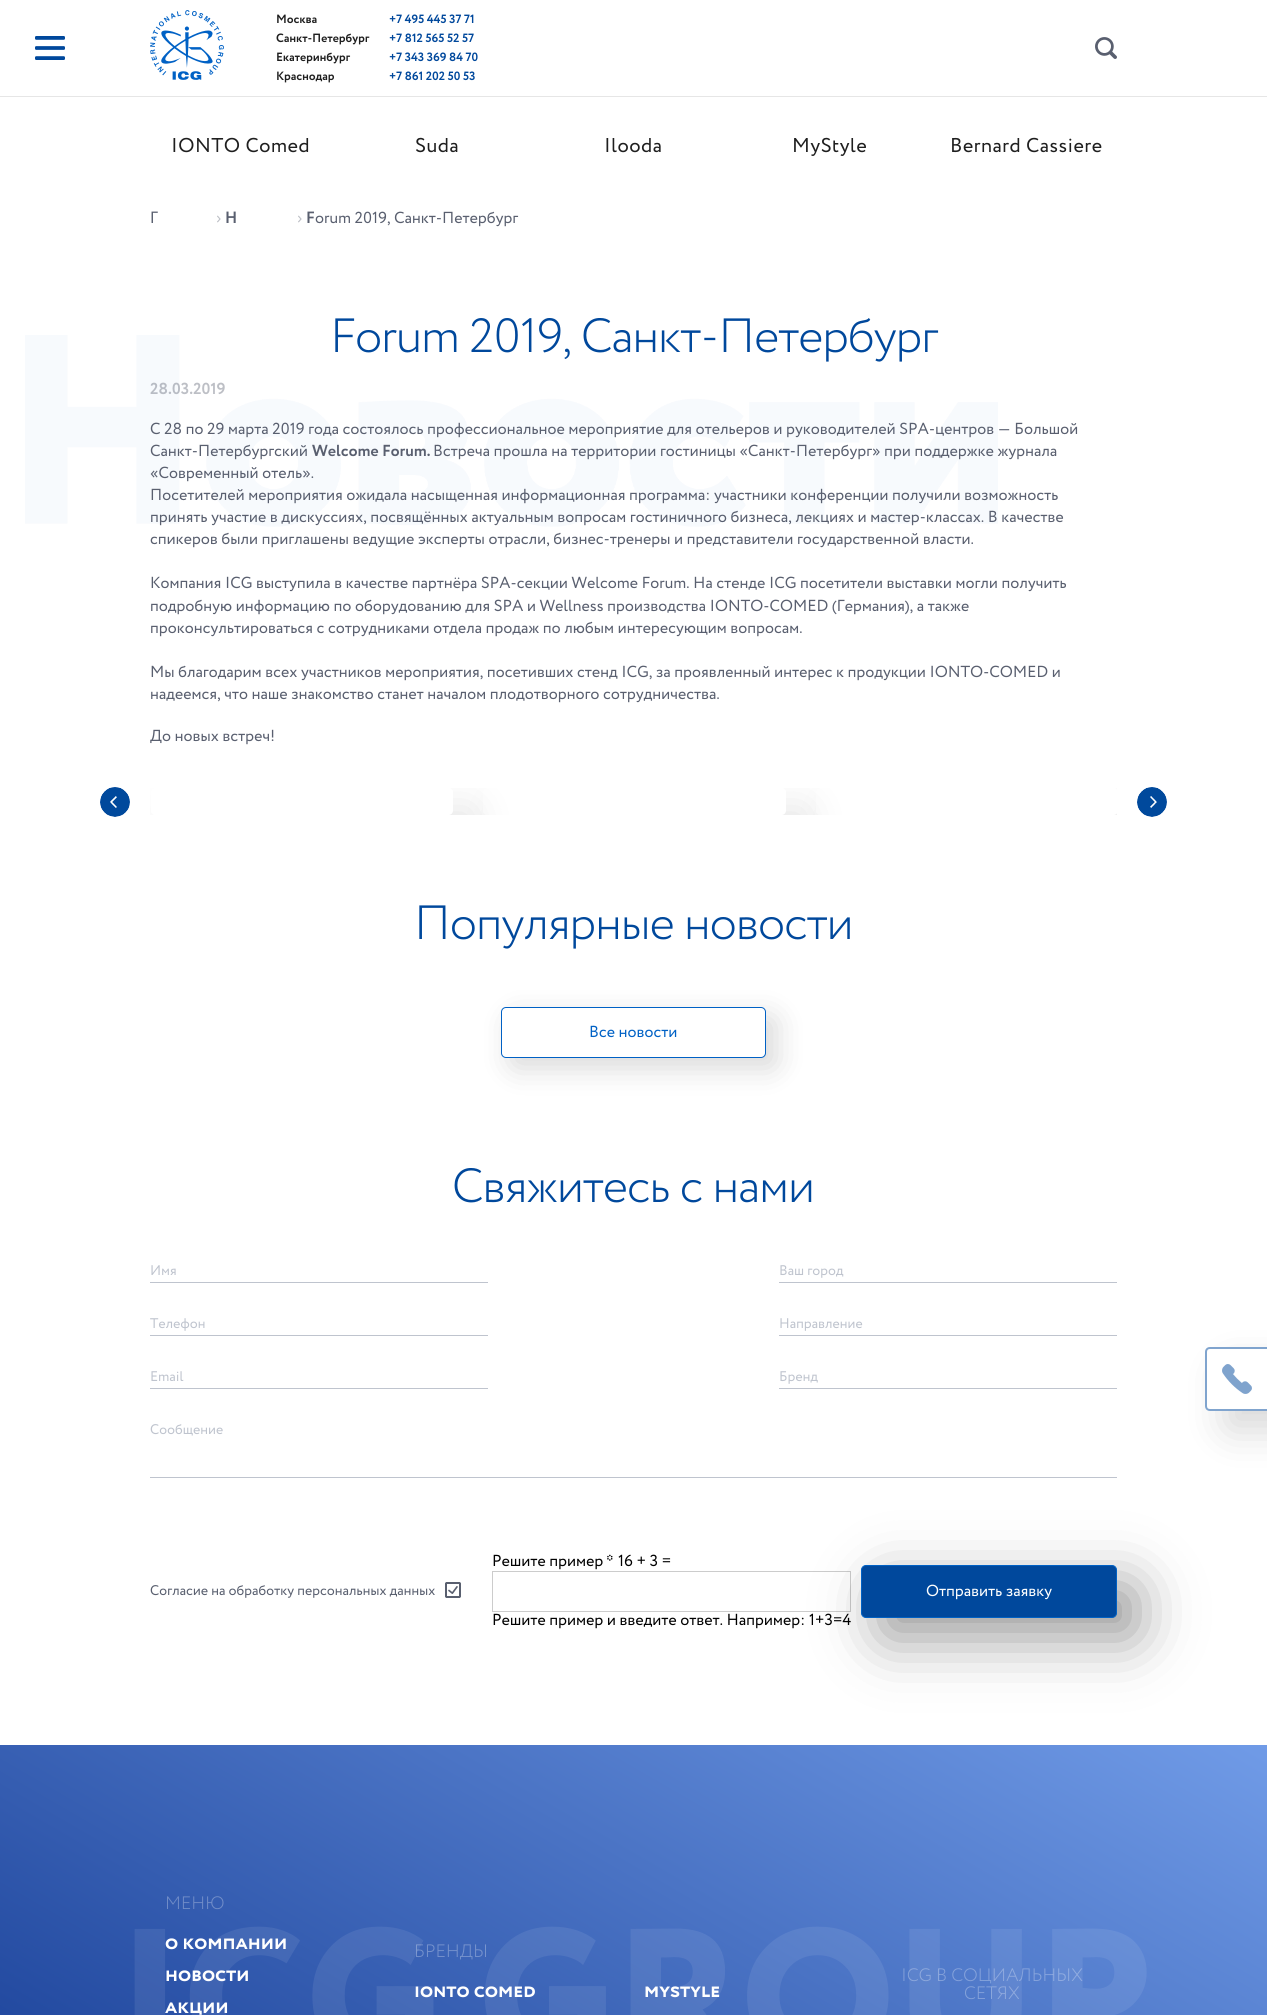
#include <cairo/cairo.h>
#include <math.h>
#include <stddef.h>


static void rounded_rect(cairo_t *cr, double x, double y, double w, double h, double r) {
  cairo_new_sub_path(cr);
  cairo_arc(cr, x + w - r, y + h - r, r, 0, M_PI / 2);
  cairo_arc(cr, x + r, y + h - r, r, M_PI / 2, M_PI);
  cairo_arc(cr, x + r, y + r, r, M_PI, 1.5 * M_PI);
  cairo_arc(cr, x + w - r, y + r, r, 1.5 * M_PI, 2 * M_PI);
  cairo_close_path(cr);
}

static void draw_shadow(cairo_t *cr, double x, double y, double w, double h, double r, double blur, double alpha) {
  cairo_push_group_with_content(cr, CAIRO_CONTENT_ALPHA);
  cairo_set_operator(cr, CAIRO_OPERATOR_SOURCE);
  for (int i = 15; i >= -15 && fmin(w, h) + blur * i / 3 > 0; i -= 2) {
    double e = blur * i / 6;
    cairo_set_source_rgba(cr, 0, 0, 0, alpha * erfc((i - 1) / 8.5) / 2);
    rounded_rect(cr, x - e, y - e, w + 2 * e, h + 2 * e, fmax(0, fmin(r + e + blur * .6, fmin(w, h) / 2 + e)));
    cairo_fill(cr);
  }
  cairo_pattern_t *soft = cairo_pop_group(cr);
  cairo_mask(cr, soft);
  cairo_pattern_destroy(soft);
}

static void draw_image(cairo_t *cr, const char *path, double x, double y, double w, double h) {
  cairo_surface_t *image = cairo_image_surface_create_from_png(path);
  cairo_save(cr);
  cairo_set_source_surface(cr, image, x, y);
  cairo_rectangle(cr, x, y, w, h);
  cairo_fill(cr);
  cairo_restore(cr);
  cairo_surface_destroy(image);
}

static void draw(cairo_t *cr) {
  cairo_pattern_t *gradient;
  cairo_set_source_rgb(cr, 1, 1, 1);
  cairo_paint(cr);
  cairo_set_source_rgb(cr, 230 / 255.0, 230 / 255.0, 230 / 255.0);
  cairo_rectangle(cr, 0, 96, 1267, 1);
  cairo_fill(cr);
  draw_image(cr, "images/1.png", 35, 36, 30, 24);
  draw_image(cr, "images/2.png", 150, 10, 74, 70);
  draw_image(cr, "images/3.png", 277, 14, 40, 10);
  draw_image(cr, "images/4.png", 276, 33, 94, 12);
  draw_image(cr, "images/5.png", 277, 52, 74, 12);
  draw_image(cr, "images/6.png", 277, 71, 57, 12);
  draw_image(cr, "images/7.png", 389, 14, 85, 10);
  draw_image(cr, "images/8.png", 389, 33, 85, 10);
  draw_image(cr, "images/9.png", 389, 52, 89, 10);
  draw_image(cr, "images/10.png", 389, 71, 86, 10);
  draw_image(cr, "images/11.png", 1095, 37, 22, 22);
  draw_image(cr, "images/12.png", 173, 137, 136, 16);
  draw_image(cr, "images/13.png", 416, 137, 42, 16);
  draw_image(cr, "images/14.png", 606, 138, 55, 15);
  draw_image(cr, "images/15.png", 794, 137, 72, 19);
  draw_image(cr, "images/16.png", 952, 137, 150, 16);
  draw_image(cr, "images/17.png", 217, 215, 4, 8);
  draw_image(cr, "images/17.png", 298, 215, 4, 8);
  draw_image(cr, "images/18.png", 315, 211, 204, 16);
  draw_image(cr, "images/19.png", 25, 335, 973, 192);
  draw_image(cr, "images/20.png", 335, 318, 604, 44);
  draw_image(cr, "images/21.png", 150, 382, 75, 13);
  draw_image(cr, "images/22.png", 150, 422, 928, 16);
  draw_image(cr, "images/23.png", 150, 444, 157, 16);
  draw_image(cr, "images/24.png", 312, 444, 118, 13);
  draw_image(cr, "images/25.png", 434, 444, 623, 16);
  draw_image(cr, "images/26.png", 150, 466, 164, 16);
  draw_image(cr, "images/27.png", 151, 488, 907, 16);
  draw_image(cr, "images/28.png", 151, 510, 913, 16);
  draw_image(cr, "images/29.png", 150, 532, 823, 16);
  draw_image(cr, "images/30.png", 151, 576, 915, 16);
  draw_image(cr, "images/31.png", 151, 599, 818, 16);
  draw_image(cr, "images/32.png", 151, 621, 651, 16);
  draw_image(cr, "images/33.png", 151, 665, 909, 16);
  draw_image(cr, "images/34.png", 151, 691, 568, 12);
  draw_image(cr, "images/35.png", 150, 729, 124, 16);
  cairo_save(cr);
  cairo_rectangle(cr, 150, 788, 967, 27);
  cairo_clip(cr);
  cairo_set_fill_rule(cr, CAIRO_FILL_RULE_EVEN_ODD);
  cairo_new_path(cr);
  cairo_move_to(cr, 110, 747);
  cairo_line_to(cr, 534, 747);
  cairo_line_to(cr, 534, 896);
  cairo_line_to(cr, 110, 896);
  cairo_close_path(cr);
  cairo_move_to(cr, 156, 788);
  cairo_line_to(cr, 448, 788);
  cairo_curve_to(cr, 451, 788, 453, 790, 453, 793);
  cairo_line_to(cr, 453, 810);
  cairo_curve_to(cr, 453, 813, 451, 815, 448, 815);
  cairo_line_to(cr, 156, 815);
  cairo_curve_to(cr, 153, 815, 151, 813, 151, 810);
  cairo_line_to(cr, 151, 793);
  cairo_curve_to(cr, 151, 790, 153, 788, 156, 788);
  cairo_close_path(cr);
  cairo_clip(cr);
  cairo_set_source_rgb(cr, 0, 0, 0);
  draw_shadow(cr, 171, 808, 302, 27, 5, 20, 0.1);
  cairo_restore(cr);
  cairo_save(cr);
  cairo_rectangle(cr, 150, 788, 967, 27);
  cairo_clip(cr);
  cairo_set_fill_rule(cr, CAIRO_FILL_RULE_EVEN_ODD);
  cairo_new_path(cr);
  cairo_move_to(cr, 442, 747);
  cairo_line_to(cr, 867, 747);
  cairo_line_to(cr, 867, 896);
  cairo_line_to(cr, 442, 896);
  cairo_close_path(cr);
  cairo_move_to(cr, 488, 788);
  cairo_line_to(cr, 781, 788);
  cairo_curve_to(cr, 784, 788, 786, 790, 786, 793);
  cairo_line_to(cr, 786, 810);
  cairo_curve_to(cr, 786, 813, 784, 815, 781, 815);
  cairo_line_to(cr, 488, 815);
  cairo_curve_to(cr, 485, 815, 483, 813, 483, 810);
  cairo_line_to(cr, 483, 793);
  cairo_curve_to(cr, 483, 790, 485, 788, 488, 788);
  cairo_close_path(cr);
  cairo_clip(cr);
  cairo_set_source_rgb(cr, 0, 0, 0);
  draw_shadow(cr, 503, 808, 303, 27, 5, 20, 0.1);
  cairo_restore(cr);
  cairo_save(cr);
  cairo_rectangle(cr, 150, 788, 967, 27);
  cairo_clip(cr);
  cairo_set_fill_rule(cr, CAIRO_FILL_RULE_EVEN_ODD);
  cairo_new_path(cr);
  cairo_move_to(cr, 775, 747);
  cairo_line_to(cr, 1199, 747);
  cairo_line_to(cr, 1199, 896);
  cairo_line_to(cr, 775, 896);
  cairo_close_path(cr);
  cairo_move_to(cr, 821, 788);
  cairo_line_to(cr, 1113, 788);
  cairo_curve_to(cr, 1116, 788, 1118, 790, 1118, 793);
  cairo_line_to(cr, 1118, 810);
  cairo_curve_to(cr, 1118, 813, 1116, 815, 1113, 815);
  cairo_line_to(cr, 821, 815);
  cairo_curve_to(cr, 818, 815, 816, 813, 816, 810);
  cairo_line_to(cr, 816, 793);
  cairo_curve_to(cr, 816, 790, 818, 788, 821, 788);
  cairo_close_path(cr);
  cairo_clip(cr);
  cairo_set_source_rgb(cr, 0, 0, 0);
  draw_shadow(cr, 836, 808, 302, 27, 5, 20, 0.1);
  cairo_restore(cr);
  draw_image(cr, "images/36.png", 100, 787, 30, 30);
  draw_image(cr, "images/37.png", 1137, 787, 30, 30);
  draw_image(cr, "images/38.png", 419, 905, 431, 44);
  cairo_set_source_rgb(cr, 0, 0, 0);
  draw_shadow(cr, 511, 1017, 265, 51, 5, 15, 0.15);
  cairo_set_source_rgb(cr, 1, 1, 1);
  rounded_rect(cr, 501.5, 1007.5, 264, 50, 4.5);
  cairo_fill_preserve(cr);
  cairo_set_source_rgb(cr, 0, 97 / 255.0, 197 / 255.0);
  cairo_set_line_width(cr, 1);
  cairo_stroke(cr);
  draw_image(cr, "images/39.png", 590, 1025, 87, 13);
  draw_image(cr, "images/40.png", 454, 1168, 358, 35);
  cairo_set_source_rgb(cr, 191 / 255.0, 196 / 255.0, 206 / 255.0);
  cairo_rectangle(cr, 150, 1282, 338, 1);
  cairo_fill(cr);
  draw_image(cr, "images/41.png", 151, 1265, 25, 10);
  cairo_rectangle(cr, 779, 1282, 338, 1);
  cairo_fill(cr);
  draw_image(cr, "images/42.png", 780, 1265, 64, 13);
  cairo_rectangle(cr, 150, 1335, 338, 1);
  cairo_fill(cr);
  draw_image(cr, "images/43.png", 150, 1318, 55, 13);
  cairo_rectangle(cr, 779, 1335, 338, 1);
  cairo_fill(cr);
  draw_image(cr, "images/44.png", 780, 1318, 83, 13);
  cairo_rectangle(cr, 150, 1388, 338, 1);
  cairo_fill(cr);
  draw_image(cr, "images/45.png", 151, 1371, 33, 10);
  cairo_rectangle(cr, 779, 1388, 338, 1);
  cairo_fill(cr);
  draw_image(cr, "images/46.png", 780, 1371, 38, 13);
  cairo_rectangle(cr, 150, 1477, 967, 1);
  cairo_fill(cr);
  draw_image(cr, "images/47.png", 150, 1424, 73, 12);
  draw_image(cr, "images/48.png", 150, 1585, 285, 13);
  draw_image(cr, "images/49.png", 445, 1582, 16, 16);
  rounded_rect(cr, 446, 1583, 14, 14, 1);
  cairo_set_source_rgb(cr, 89 / 255.0, 95 / 255.0, 111 / 255.0);
  cairo_set_line_width(cr, 2);
  cairo_stroke(cr);
  draw_image(cr, "images/50.png", 493, 1554, 110, 16);
  draw_image(cr, "images/51.png", 607, 1554, 6, 7);
  draw_image(cr, "images/52.png", 618, 1554, 53, 13);
  cairo_rectangle(cr, 492.5, 1571.5, 358, 40);
  cairo_set_source_rgb(cr, 204 / 255.0, 204 / 255.0, 204 / 255.0);
  cairo_set_line_width(cr, 1);
  cairo_stroke(cr);
  draw_image(cr, "images/53.png", 493, 1613, 358, 16);
  cairo_set_source_rgb(cr, 0, 0, 0);
  draw_shadow(cr, 881, 1585, 256, 53, 5, 30, 0.4);
  cairo_set_source_rgb(cr, 0, 72 / 255.0, 156 / 255.0);
  rounded_rect(cr, 861.5, 1565.5, 255, 52, 4.5);
  cairo_fill_preserve(cr);
  cairo_set_source_rgb(cr, 0, 97 / 255.0, 197 / 255.0);
  cairo_stroke(cr);
  draw_image(cr, "images/54.png", 926, 1584, 126, 16);
  cairo_save(cr);
  cairo_set_fill_rule(cr, CAIRO_FILL_RULE_EVEN_ODD);
  cairo_new_path(cr);
  cairo_move_to(cr, 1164, 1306);
  cairo_line_to(cr, 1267, 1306);
  cairo_line_to(cr, 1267, 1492);
  cairo_line_to(cr, 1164, 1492);
  cairo_close_path(cr);
  cairo_move_to(cr, 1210, 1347);
  cairo_line_to(cr, 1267, 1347);
  cairo_line_to(cr, 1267, 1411);
  cairo_line_to(cr, 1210, 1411);
  cairo_curve_to(cr, 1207, 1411, 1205, 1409, 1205, 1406);
  cairo_line_to(cr, 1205, 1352);
  cairo_curve_to(cr, 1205, 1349, 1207, 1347, 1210, 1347);
  cairo_close_path(cr);
  cairo_clip(cr);
  cairo_set_source_rgb(cr, 128 / 255.0, 128 / 255.0, 128 / 255.0);
  draw_shadow(cr, 1225, 1367, 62, 64, 5, 20, 0.3);
  cairo_restore(cr);
  draw_image(cr, "images/55.png", 1222, 1364, 30, 30);
  cairo_set_source_rgb(cr, 128 / 255.0, 164 / 255.0, 206 / 255.0);
  cairo_set_fill_rule(cr, CAIRO_FILL_RULE_EVEN_ODD);
  cairo_new_path(cr);
  cairo_move_to(cr, 1210, 1347);
  cairo_line_to(cr, 1267, 1347);
  cairo_line_to(cr, 1267, 1411);
  cairo_line_to(cr, 1210, 1411);
  cairo_curve_to(cr, 1207, 1411, 1205, 1409, 1205, 1406);
  cairo_line_to(cr, 1205, 1352);
  cairo_curve_to(cr, 1205, 1349, 1207, 1347, 1210, 1347);
  cairo_close_path(cr);
  cairo_move_to(cr, 1210, 1349);
  cairo_line_to(cr, 1267, 1349);
  cairo_line_to(cr, 1267, 1409);
  cairo_line_to(cr, 1210, 1409);
  cairo_curve_to(cr, 1208, 1409, 1207, 1408, 1207, 1406);
  cairo_line_to(cr, 1207, 1352);
  cairo_curve_to(cr, 1207, 1350, 1208, 1349, 1210, 1349);
  cairo_close_path(cr);
  cairo_fill(cr);
  gradient = cairo_pattern_create_linear(361, 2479, 906, 1536);
  cairo_pattern_add_color_stop_rgba(gradient, 0, 15 / 255.0, 53 / 255.0, 142 / 255.0, 1);
  cairo_pattern_add_color_stop_rgba(gradient, 1, 112 / 255.0, 155 / 255.0, 231 / 255.0, 1);
  cairo_set_source(cr, gradient);
  cairo_pattern_destroy(gradient);
  cairo_rectangle(cr, 0, 1745, 1267, 270);
  cairo_fill(cr);
  draw_image(cr, "images/56.png", 167, 1896, 57, 14);
  draw_image(cr, "images/65.png", 134, 1926, 1013, 89);
  draw_image(cr, "images/57.png", 165, 1938, 121, 12);
  draw_image(cr, "images/58.png", 166, 1970, 82, 12);
  draw_image(cr, "images/59.png", 165, 2002, 63, 13);
  draw_image(cr, "images/60.png", 416, 1944, 70, 16);
  draw_image(cr, "images/61.png", 415, 1986, 120, 12);
  draw_image(cr, "images/62.png", 645, 1986, 75, 12);
  draw_image(cr, "images/63.png", 903, 1968, 180, 16);
  draw_image(cr, "images/64.png", 965, 1986, 54, 14);
  cairo_select_font_face(cr, "Noto Sans", CAIRO_FONT_SLANT_NORMAL, CAIRO_FONT_WEIGHT_NORMAL);
  cairo_set_font_size(cr, 16);
  cairo_set_source_rgb(cr, 89 / 255.0, 95 / 255.0, 111 / 255.0);
  cairo_move_to(cr, 150, 223);
  cairo_show_text(cr, "Г");
  cairo_select_font_face(cr, "Noto Sans SemiBold", CAIRO_FONT_SLANT_NORMAL, CAIRO_FONT_WEIGHT_NORMAL);
  cairo_move_to(cr, 225, 223);
  cairo_show_text(cr, "Н");
  cairo_move_to(cr, 306, 223);
  cairo_show_text(cr, "F");
}

int main(void) {
  cairo_surface_t *surface = cairo_image_surface_create(CAIRO_FORMAT_RGB24, 1267, 2015);
  cairo_t *cr = cairo_create(surface);
  cairo_font_options_t *options = cairo_font_options_create();
  cairo_font_options_set_hint_metrics(options, CAIRO_HINT_METRICS_OFF);
  cairo_font_options_set_hint_style(options, CAIRO_HINT_STYLE_NONE);
  cairo_set_font_options(cr, options);
  cairo_set_miter_limit(cr, 4);
  draw(cr);
  cairo_surface_write_to_png(surface, "out.png");
  cairo_font_options_destroy(options);
  cairo_destroy(cr);
  cairo_surface_destroy(surface);
  return 0;
}
